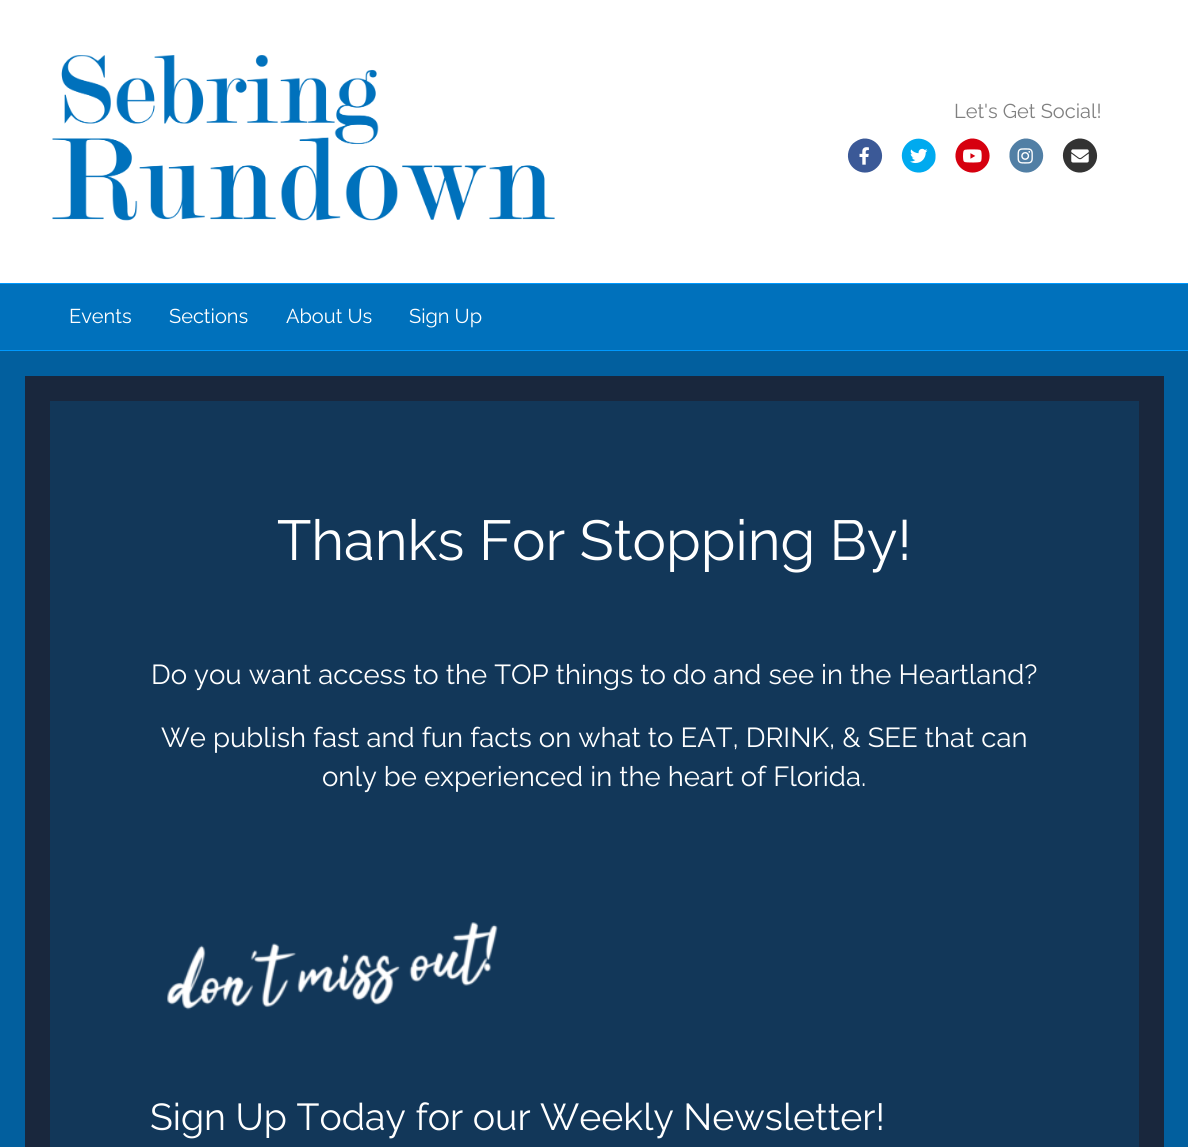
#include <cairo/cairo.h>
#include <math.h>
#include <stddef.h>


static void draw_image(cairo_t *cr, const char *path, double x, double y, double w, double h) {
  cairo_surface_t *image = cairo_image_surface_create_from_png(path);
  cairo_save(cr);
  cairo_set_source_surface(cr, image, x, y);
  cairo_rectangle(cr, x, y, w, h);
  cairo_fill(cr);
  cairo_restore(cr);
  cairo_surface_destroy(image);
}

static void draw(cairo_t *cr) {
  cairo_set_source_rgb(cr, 1, 1, 1);
  cairo_paint(cr);
  draw_image(cr, "images/1.png", 52, 55, 503, 166);
  cairo_set_source_rgb(cr, 59 / 255.0, 89 / 255.0, 151 / 255.0);
  cairo_new_path(cr);
  cairo_move_to(cr, 853, 143.5);
  cairo_curve_to(cr, 856, 141, 859.5, 139, 863.5, 138.5);
  cairo_curve_to(cr, 879, 137.5, 888.5, 156.5, 877, 167.5);
  cairo_curve_to(cr, 865.5, 179, 846.5, 169.5, 848, 154);
  cairo_curve_to(cr, 848.5, 150, 850, 146.5, 853, 143.5);
  cairo_close_path(cr);
  cairo_fill(cr);
  draw_image(cr, "images/2.png", 859, 147, 10, 18);
  cairo_set_source_rgb(cr, 0, 170 / 255.0, 239 / 255.0);
  cairo_new_path(cr);
  cairo_move_to(cr, 907, 143.5);
  cairo_curve_to(cr, 918, 132.5, 937, 141.5, 935.5, 157.5);
  cairo_curve_to(cr, 935.5, 161.5, 933.5, 165, 930.5, 167.5);
  cairo_curve_to(cr, 928, 170.5, 924.5, 172, 920.5, 172.5);
  cairo_curve_to(cr, 904.5, 174, 895.5, 155, 907, 143.5);
  cairo_close_path(cr);
  cairo_fill(cr);
  draw_image(cr, "images/3.png", 910, 148, 18, 16);
  cairo_set_source_rgb(cr, 214 / 255.0, 0, 15 / 255.0);
  cairo_new_path(cr);
  cairo_move_to(cr, 960.5, 143.5);
  cairo_curve_to(cr, 963.5, 141, 967, 139, 971, 138.5);
  cairo_curve_to(cr, 986.5, 137.5, 996, 156.5, 984.5, 167.5);
  cairo_curve_to(cr, 973, 179, 954, 169.5, 955.5, 154);
  cairo_curve_to(cr, 956, 150, 957.5, 146.5, 960.5, 143.5);
  cairo_close_path(cr);
  cairo_fill(cr);
  draw_image(cr, "images/4.png", 963, 149, 19, 14);
  cairo_set_source_rgb(cr, 81 / 255.0, 127 / 255.0, 165 / 255.0);
  cairo_new_path(cr);
  cairo_move_to(cr, 1014.5, 143.5);
  cairo_curve_to(cr, 1017, 141, 1020.5, 139, 1024.5, 138.5);
  cairo_curve_to(cr, 1040.5, 137.5, 1049.5, 156.5, 1038, 167.5);
  cairo_curve_to(cr, 1027, 179, 1008, 169.5, 1009.5, 154);
  cairo_curve_to(cr, 1009.5, 150, 1011.5, 146.5, 1014.5, 143.5);
  cairo_close_path(cr);
  cairo_fill(cr);
  draw_image(cr, "images/5.png", 1017, 148, 16, 16);
  cairo_set_source_rgb(cr, 51 / 255.0, 51 / 255.0, 51 / 255.0);
  cairo_new_path(cr);
  cairo_move_to(cr, 1068, 143.5);
  cairo_curve_to(cr, 1071, 141, 1074.5, 139, 1078.5, 138.5);
  cairo_curve_to(cr, 1094, 137.5, 1103.5, 156.5, 1092, 167.5);
  cairo_curve_to(cr, 1089, 170.5, 1085.5, 172, 1081.5, 172.5);
  cairo_curve_to(cr, 1066, 174, 1056.5, 155, 1068, 143.5);
  cairo_close_path(cr);
  cairo_fill(cr);
  draw_image(cr, "images/6.png", 1071, 149, 18, 14);
  cairo_set_source_rgb(cr, 0, 113 / 255.0, 188 / 255.0);
  cairo_rectangle(cr, 0, 284, 1188, 66);
  cairo_fill(cr);
  cairo_set_source_rgb(cr, 0, 153 / 255.0, 254 / 255.0);
  cairo_rectangle(cr, 0, 283, 1188, 1);
  cairo_fill(cr);
  cairo_rectangle(cr, 0, 350, 1188, 1);
  cairo_fill(cr);
  cairo_set_source_rgb(cr, 2 / 255.0, 95 / 255.0, 158 / 255.0);
  cairo_rectangle(cr, 0, 351, 1188, 796);
  cairo_fill(cr);
  cairo_set_source_rgb(cr, 18 / 255.0, 55 / 255.0, 89 / 255.0);
  cairo_rectangle(cr, 37.5, 388.5, 1114, 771);
  cairo_fill_preserve(cr);
  cairo_set_source_rgb(cr, 25 / 255.0, 39 / 255.0, 61 / 255.0);
  cairo_set_line_width(cr, 25);
  cairo_stroke(cr);
  draw_image(cr, "images/7.png", 167, 922, 331, 88);
  cairo_select_font_face(cr, "Raleway", CAIRO_FONT_SLANT_NORMAL, CAIRO_FONT_WEIGHT_NORMAL);
  cairo_set_font_size(cr, 20);
  cairo_set_source_rgb(cr, 128 / 255.0, 128 / 255.0, 128 / 255.0);
  cairo_move_to(cr, 954, 118);
  cairo_show_text(cr, "Let's Get Social!");
  cairo_set_source_rgb(cr, 1, 1, 1);
  cairo_move_to(cr, 69, 323);
  cairo_show_text(cr, "Events");
  cairo_move_to(cr, 169, 323);
  cairo_show_text(cr, "Sections");
  cairo_move_to(cr, 286, 323);
  cairo_show_text(cr, "About Us");
  cairo_move_to(cr, 409, 323);
  cairo_show_text(cr, "Sign Up");
  cairo_set_font_size(cr, 56.25);
  cairo_move_to(cr, 277, 560);
  cairo_show_text(cr, "Thanks For Stopping By!");
  cairo_set_font_size(cr, 27.5);
  cairo_move_to(cr, 151, 684);
  cairo_show_text(cr, "Do you want access to the TOP things to do and see in the Heartland?");
  cairo_move_to(cr, 161, 747);
  cairo_show_text(cr, "We publish fast and fun facts on what to EAT, DRINK, & SEE that can");
  cairo_move_to(cr, 322, 786);
  cairo_show_text(cr, "only be experienced in the heart of Florida.");
  cairo_set_font_size(cr, 37.5);
  cairo_move_to(cr, 150, 1130);
  cairo_show_text(cr, "Sign Up Today for our Weekly Newsletter!");
}

int main(void) {
  cairo_surface_t *surface = cairo_image_surface_create(CAIRO_FORMAT_RGB24, 1188, 1147);
  cairo_t *cr = cairo_create(surface);
  cairo_font_options_t *options = cairo_font_options_create();
  cairo_font_options_set_hint_metrics(options, CAIRO_HINT_METRICS_OFF);
  cairo_font_options_set_hint_style(options, CAIRO_HINT_STYLE_NONE);
  cairo_set_font_options(cr, options);
  cairo_set_miter_limit(cr, 4);
  draw(cr);
  cairo_surface_write_to_png(surface, "out.png");
  cairo_font_options_destroy(options);
  cairo_destroy(cr);
  cairo_surface_destroy(surface);
  return 0;
}
